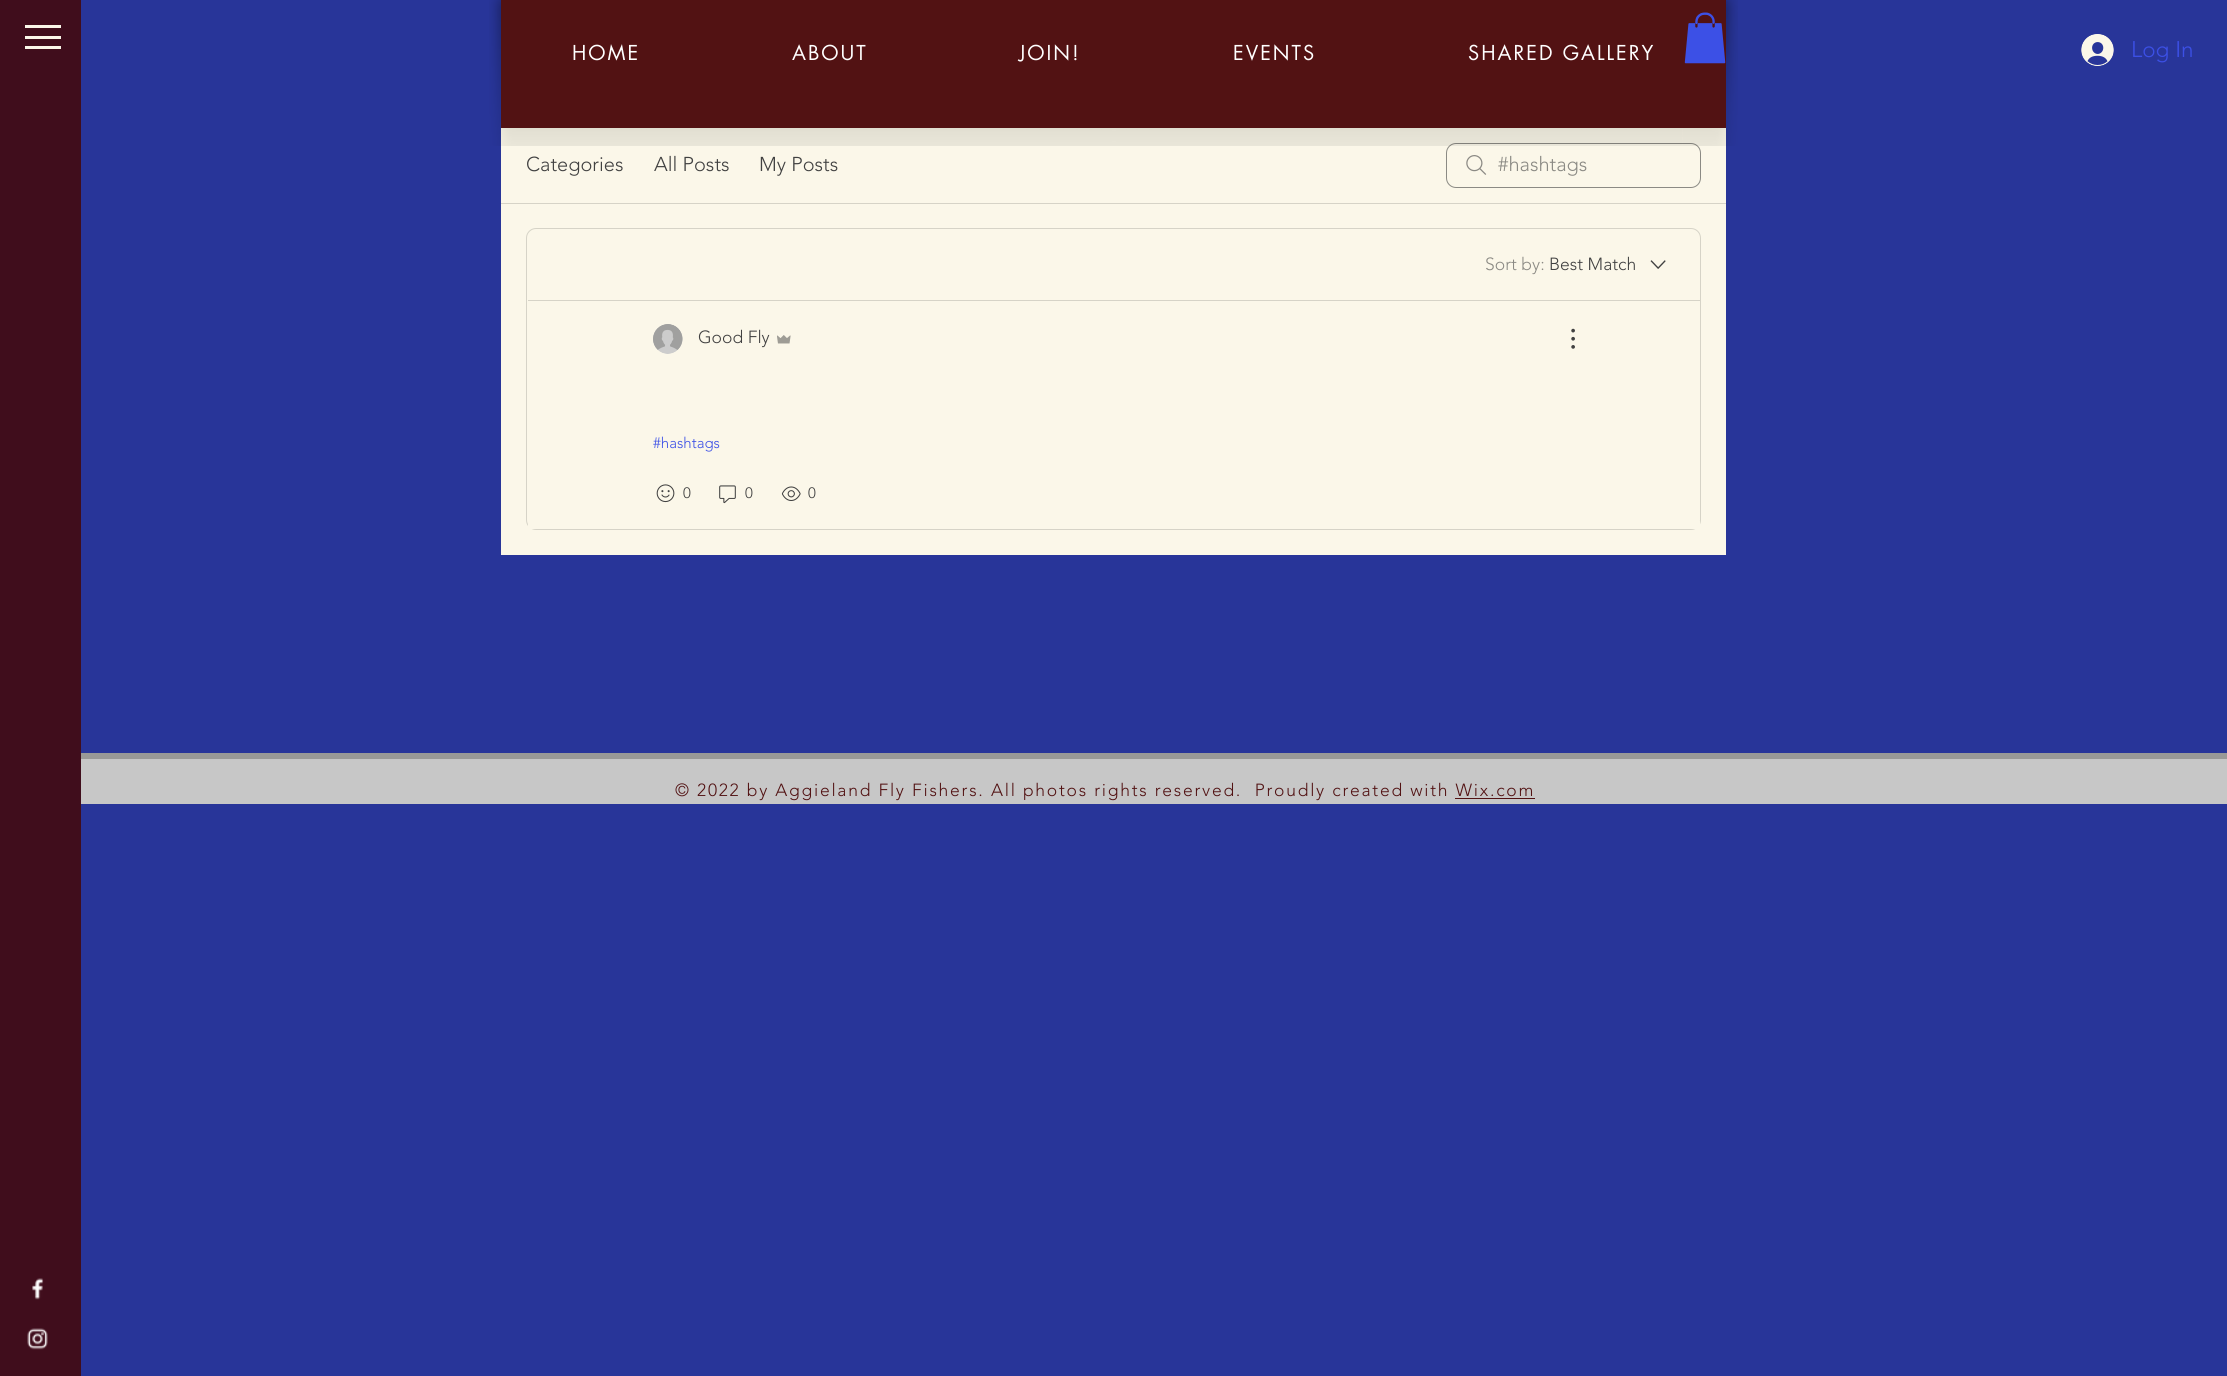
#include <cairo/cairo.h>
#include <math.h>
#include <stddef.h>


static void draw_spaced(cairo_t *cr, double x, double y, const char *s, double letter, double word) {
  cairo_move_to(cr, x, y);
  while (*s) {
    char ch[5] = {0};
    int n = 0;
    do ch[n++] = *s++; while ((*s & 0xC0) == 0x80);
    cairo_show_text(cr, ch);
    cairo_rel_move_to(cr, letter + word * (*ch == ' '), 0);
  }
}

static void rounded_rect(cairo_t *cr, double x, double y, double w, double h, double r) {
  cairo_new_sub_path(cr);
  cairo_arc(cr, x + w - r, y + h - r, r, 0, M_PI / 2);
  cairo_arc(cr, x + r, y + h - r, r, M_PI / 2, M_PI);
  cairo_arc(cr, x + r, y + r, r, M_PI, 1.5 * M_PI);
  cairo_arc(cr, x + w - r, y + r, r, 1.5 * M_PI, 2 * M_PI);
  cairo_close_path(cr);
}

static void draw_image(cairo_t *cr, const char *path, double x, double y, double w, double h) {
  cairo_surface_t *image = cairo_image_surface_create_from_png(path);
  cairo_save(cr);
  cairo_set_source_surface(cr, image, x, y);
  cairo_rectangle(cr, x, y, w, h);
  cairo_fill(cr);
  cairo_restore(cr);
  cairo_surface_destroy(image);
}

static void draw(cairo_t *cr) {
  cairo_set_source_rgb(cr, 40 / 255.0, 53 / 255.0, 153 / 255.0);
  cairo_paint(cr);
  cairo_set_source_rgb(cr, 64 / 255.0, 13 / 255.0, 28 / 255.0);
  cairo_rectangle(cr, 0, 0, 81, 1376);
  cairo_fill(cr);
  cairo_set_source_rgb(cr, 251 / 255.0, 247 / 255.0, 233 / 255.0);
  cairo_rectangle(cr, 25, 46, 36, 3);
  cairo_fill(cr);
  cairo_rectangle(cr, 25, 25, 36, 3);
  cairo_fill(cr);
  cairo_rectangle(cr, 25, 36, 36, 3);
  cairo_fill(cr);
  cairo_rectangle(cr, 501, 128, 1225, 427);
  cairo_fill(cr);
  draw_image(cr, "images/1.png", 489, 0, 56, 146);
  draw_image(cr, "images/6.png", 1466, 155, 21, 20);
  rounded_rect(cr, 1446.5, 143.5, 254, 44, 9.5);
  cairo_set_source_rgb(cr, 139 / 255.0, 138 / 255.0, 132 / 255.0);
  cairo_set_line_width(cr, 1);
  cairo_stroke(cr);
  draw_image(cr, "images/2.png", 545, 128, 1138, 18);
  draw_image(cr, "images/3.png", 1682, 0, 56, 146);
  cairo_set_source_rgb(cr, 82 / 255.0, 18 / 255.0, 19 / 255.0);
  cairo_rectangle(cr, 501, 0, 1225, 128);
  cairo_fill(cr);
  draw_image(cr, "images/4.png", 1684, 12, 42, 52);
  draw_image(cr, "images/5.png", 2081, 34, 33, 32);
  cairo_set_source_rgb(cr, 214 / 255.0, 211 / 255.0, 199 / 255.0);
  cairo_rectangle(cr, 501, 203, 1225, 1);
  cairo_fill(cr);
  rounded_rect(cr, 526.5, 228.5, 1174, 301, 9.5);
  cairo_stroke(cr);
  draw_image(cr, "images/7.png", 1650, 260, 16, 9);
  cairo_rectangle(cr, 528, 300, 1172, 1);
  cairo_fill(cr);
  cairo_set_source_rgb(cr, 251 / 255.0, 247 / 255.0, 233 / 255.0);
  cairo_rectangle(cr, 528, 521, 1172, 8);
  cairo_fill(cr);
  draw_image(cr, "images/8.png", 653, 324, 30, 30);
  draw_image(cr, "images/9.png", 777, 335, 14, 9);
  draw_image(cr, "images/10.png", 1571, 328, 4, 21);
  draw_image(cr, "images/11.png", 656, 484, 19, 19);
  draw_image(cr, "images/12.png", 719, 485, 17, 19);
  draw_image(cr, "images/13.png", 781, 486, 20, 15);
  cairo_set_source_rgb(cr, 199 / 255.0, 199 / 255.0, 199 / 255.0);
  cairo_rectangle(cr, 81, 759, 2146, 45);
  cairo_fill(cr);
  cairo_set_source_rgb(cr, 153 / 255.0, 153 / 255.0, 151 / 255.0);
  cairo_rectangle(cr, 81, 753, 2146, 6);
  cairo_fill(cr);
  cairo_set_source_rgb(cr, 82 / 255.0, 18 / 255.0, 19 / 255.0);
  cairo_rectangle(cr, 1455, 798, 80, 1);
  cairo_fill(cr);
  draw_image(cr, "images/14.png", 32, 1278, 12, 22);
  draw_image(cr, "images/15.png", 27, 1328, 21, 22);
  cairo_select_font_face(cr, "futura", CAIRO_FONT_SLANT_NORMAL, CAIRO_FONT_WEIGHT_NORMAL);
  cairo_set_font_size(cr, 20);
  cairo_set_source_rgb(cr, 1, 1, 1);
  draw_spaced(cr, 572, 60, "HOME", 2, 0);
  draw_spaced(cr, 792, 60, "ABOUT", 2, 0);
  draw_spaced(cr, 1019, 60, "JOIN!", 2, 0);
  draw_spaced(cr, 1233, 60, "EVENTS", 2, 0);
  draw_spaced(cr, 1468, 60, "SHARED GALLERY", 2, 0);
  cairo_select_font_face(cr, "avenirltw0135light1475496 Light", CAIRO_FONT_SLANT_NORMAL, CAIRO_FONT_WEIGHT_NORMAL);
  cairo_set_font_size(cr, 22.5);
  cairo_set_source_rgb(cr, 60 / 255.0, 80 / 255.0, 230 / 255.0);
  cairo_move_to(cr, 2131, 57);
  cairo_show_text(cr, "Log In");
  cairo_set_font_size(cr, 20);
  cairo_set_source_rgb(cr, 65 / 255.0, 65 / 255.0, 65 / 255.0);
  cairo_move_to(cr, 526, 171);
  cairo_show_text(cr, "Categories");
  cairo_move_to(cr, 654, 171);
  cairo_show_text(cr, "All Posts");
  cairo_move_to(cr, 759, 171);
  cairo_show_text(cr, "My Posts");
  cairo_set_source_rgb(cr, 139 / 255.0, 138 / 255.0, 132 / 255.0);
  cairo_move_to(cr, 1498, 171);
  cairo_show_text(cr, "#hashtags");
  cairo_set_font_size(cr, 17.5);
  cairo_move_to(cr, 1485, 270);
  cairo_show_text(cr, "Sort by:");
  cairo_set_source_rgb(cr, 65 / 255.0, 65 / 255.0, 65 / 255.0);
  cairo_move_to(cr, 1549, 270);
  cairo_show_text(cr, "Best Match");
  cairo_move_to(cr, 698, 343);
  cairo_show_text(cr, "Good Fly");
  cairo_set_font_size(cr, 15);
  cairo_set_source_rgb(cr, 60 / 255.0, 80 / 255.0, 230 / 255.0);
  cairo_move_to(cr, 653, 448);
  cairo_show_text(cr, "#hashtags");
  cairo_set_source_rgb(cr, 65 / 255.0, 65 / 255.0, 65 / 255.0);
  cairo_move_to(cr, 683, 498);
  cairo_show_text(cr, "0");
  cairo_move_to(cr, 745, 498);
  cairo_show_text(cr, "0");
  cairo_move_to(cr, 808, 498);
  cairo_show_text(cr, "0");
  cairo_set_font_size(cr, 17.5);
  cairo_set_source_rgb(cr, 82 / 255.0, 18 / 255.0, 19 / 255.0);
  draw_spaced(cr, 675, 796, "© 2022 by Aggieland Fly Fishers. All photos rights reserved.  Proudly created with Wix.com", 1.75, 0);
}

int main(void) {
  cairo_surface_t *surface = cairo_image_surface_create(CAIRO_FORMAT_RGB24, 2227, 1376);
  cairo_t *cr = cairo_create(surface);
  cairo_font_options_t *options = cairo_font_options_create();
  cairo_font_options_set_hint_metrics(options, CAIRO_HINT_METRICS_OFF);
  cairo_font_options_set_hint_style(options, CAIRO_HINT_STYLE_NONE);
  cairo_set_font_options(cr, options);
  cairo_set_miter_limit(cr, 4);
  draw(cr);
  cairo_surface_write_to_png(surface, "out.png");
  cairo_font_options_destroy(options);
  cairo_destroy(cr);
  cairo_surface_destroy(surface);
  return 0;
}
